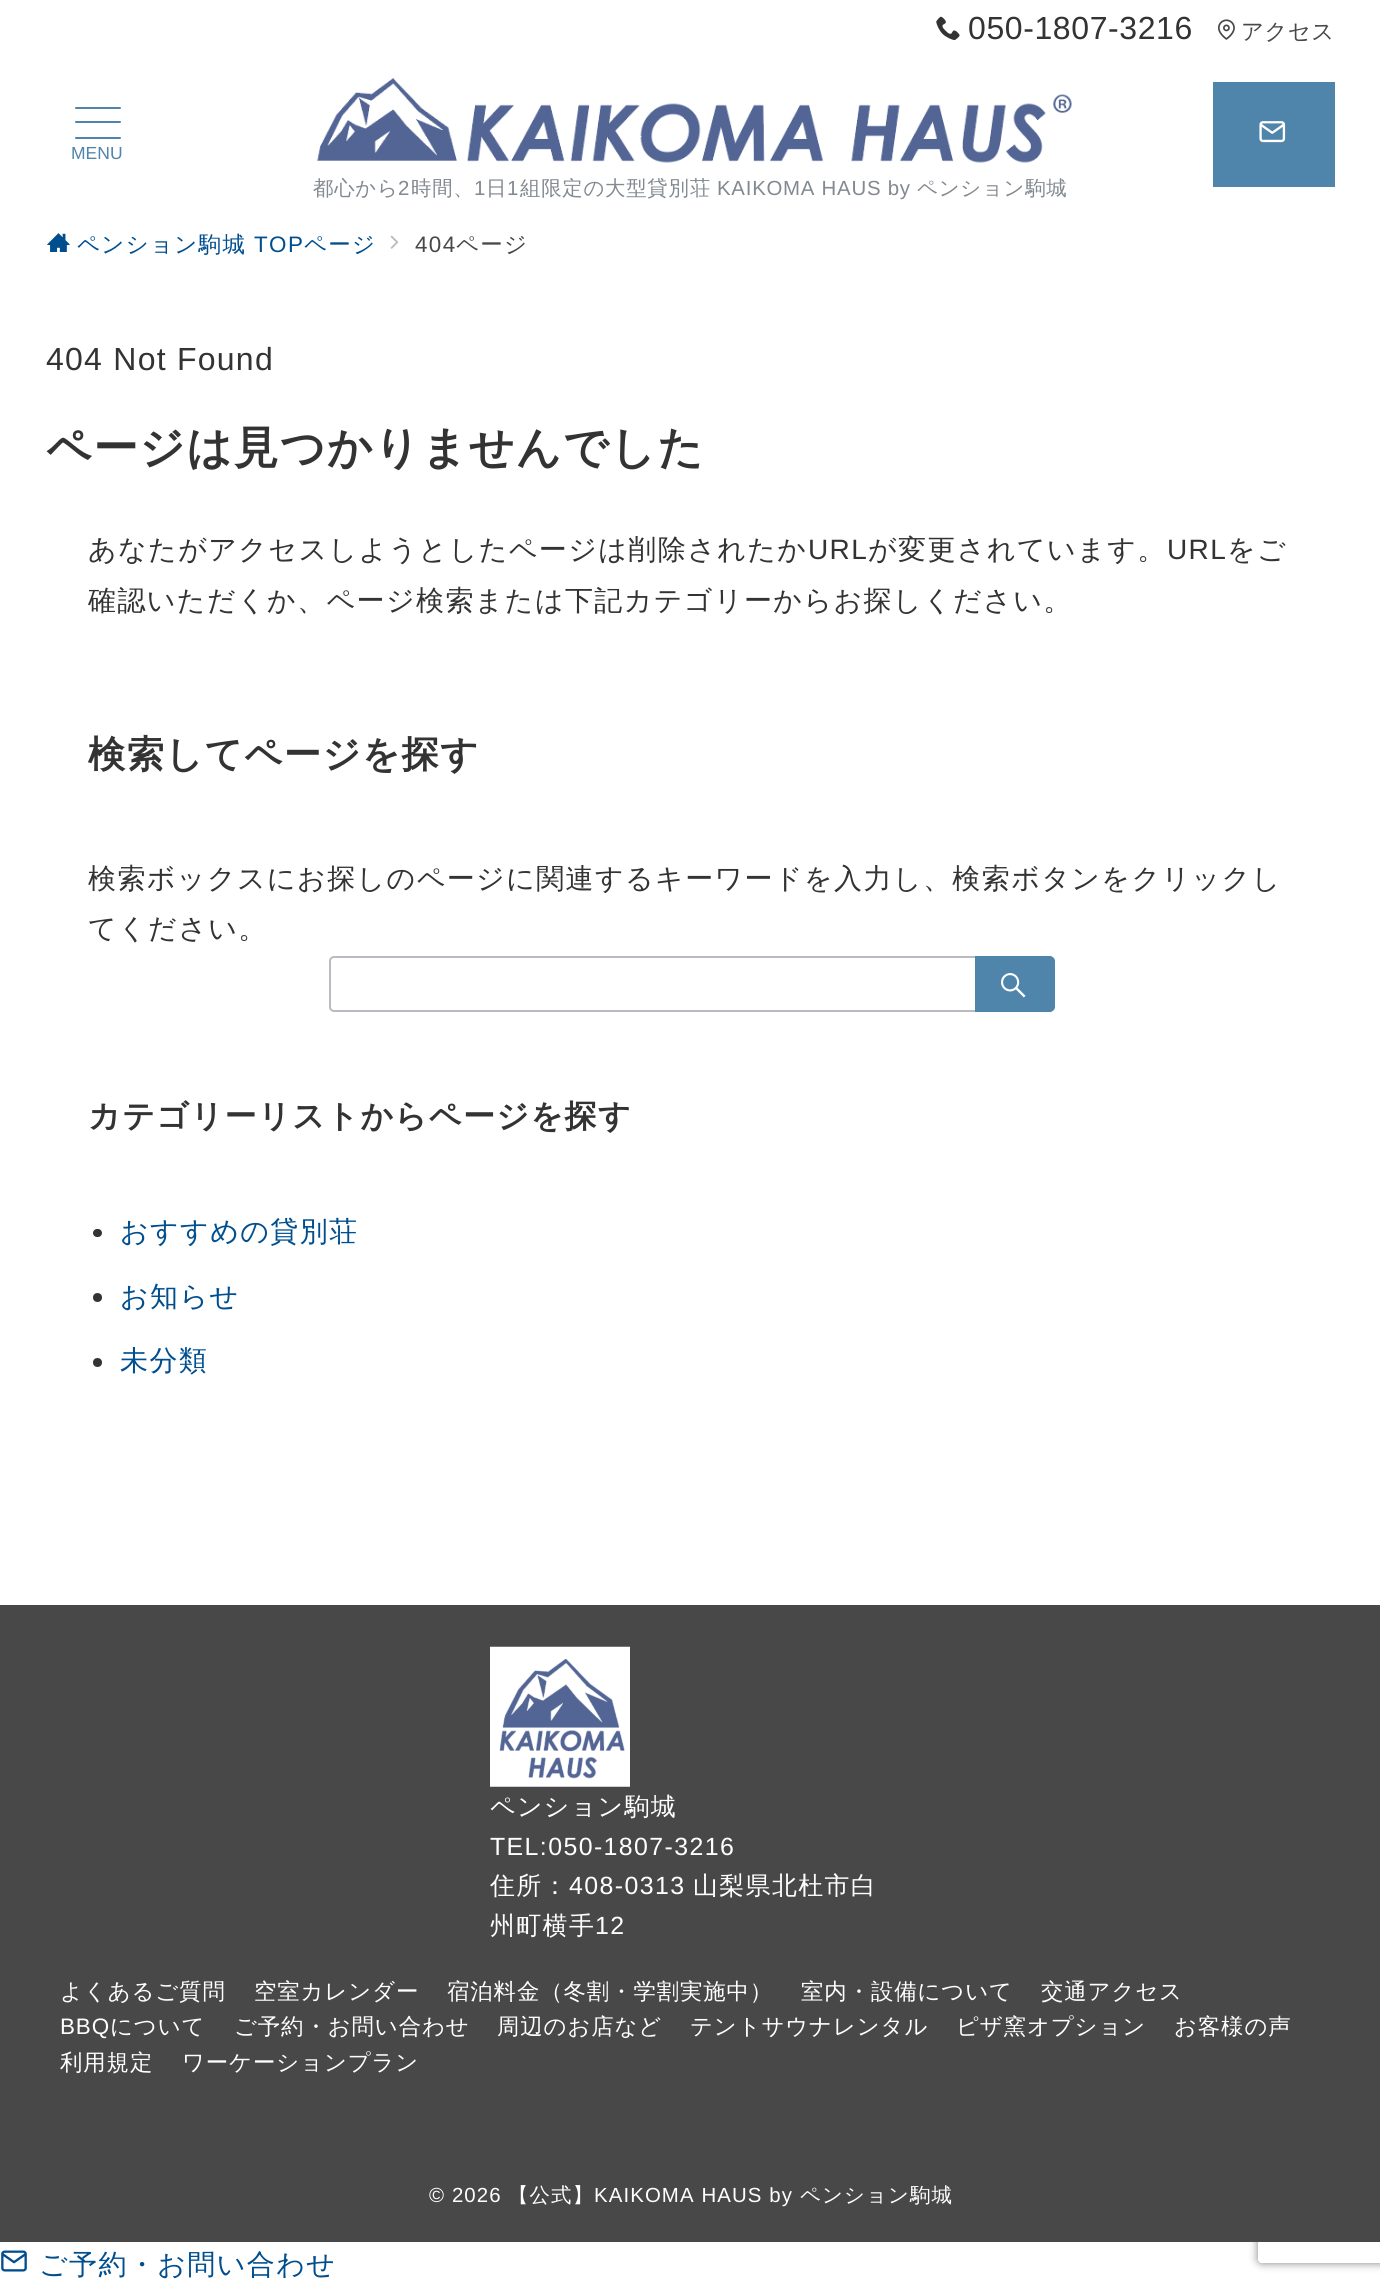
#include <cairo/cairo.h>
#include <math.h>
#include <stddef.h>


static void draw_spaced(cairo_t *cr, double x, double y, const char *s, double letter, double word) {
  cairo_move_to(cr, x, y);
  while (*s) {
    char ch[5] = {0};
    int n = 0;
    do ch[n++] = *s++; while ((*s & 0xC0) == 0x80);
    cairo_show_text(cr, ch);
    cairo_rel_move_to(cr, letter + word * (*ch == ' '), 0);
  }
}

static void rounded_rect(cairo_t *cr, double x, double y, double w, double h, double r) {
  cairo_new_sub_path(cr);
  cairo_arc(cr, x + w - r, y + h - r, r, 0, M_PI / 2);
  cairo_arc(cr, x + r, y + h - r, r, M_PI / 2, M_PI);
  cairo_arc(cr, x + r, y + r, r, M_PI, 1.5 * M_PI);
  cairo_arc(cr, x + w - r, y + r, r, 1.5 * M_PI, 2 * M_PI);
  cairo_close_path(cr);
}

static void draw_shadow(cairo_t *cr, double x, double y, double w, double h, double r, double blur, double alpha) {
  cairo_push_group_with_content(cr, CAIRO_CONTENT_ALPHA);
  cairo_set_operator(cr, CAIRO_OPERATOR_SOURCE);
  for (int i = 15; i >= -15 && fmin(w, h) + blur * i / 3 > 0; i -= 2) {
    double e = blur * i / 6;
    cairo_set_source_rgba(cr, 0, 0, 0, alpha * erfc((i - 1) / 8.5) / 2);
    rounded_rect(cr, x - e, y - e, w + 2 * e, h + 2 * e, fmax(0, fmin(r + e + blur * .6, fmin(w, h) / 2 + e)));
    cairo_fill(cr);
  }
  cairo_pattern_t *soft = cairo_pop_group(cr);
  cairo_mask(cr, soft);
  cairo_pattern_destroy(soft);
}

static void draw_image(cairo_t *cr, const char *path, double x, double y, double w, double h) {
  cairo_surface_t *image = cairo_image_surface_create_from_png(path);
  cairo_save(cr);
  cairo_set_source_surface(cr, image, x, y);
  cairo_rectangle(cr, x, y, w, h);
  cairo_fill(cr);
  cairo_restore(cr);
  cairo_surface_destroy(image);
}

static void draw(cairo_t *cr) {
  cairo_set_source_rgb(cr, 1, 1, 1);
  cairo_paint(cr);
  draw_image(cr, "images/1.png", 936, 16, 24, 24);
  draw_image(cr, "images/2.png", 1218, 19, 17, 21);
  cairo_set_source_rgb(cr, 79 / 255.0, 133 / 255.0, 171 / 255.0);
  rounded_rect(cr, 75, 107, 46, 2, 1);
  cairo_fill(cr);
  rounded_rect(cr, 75, 121, 46, 2, 1);
  cairo_fill(cr);
  rounded_rect(cr, 75, 137, 46, 2, 1);
  cairo_fill(cr);
  cairo_rectangle(cr, 1213, 82, 122, 105);
  cairo_fill(cr);
  draw_image(cr, "images/3.png", 1259, 121, 27, 22);
  draw_image(cr, "images/4.png", 317, 78, 755, 85);
  draw_image(cr, "images/5.png", 47, 233, 23, 19);
  draw_image(cr, "images/6.png", 390, 235, 9, 14);
  rounded_rect(cr, 330, 957, 721, 54, 4);
  cairo_set_source_rgb(cr, 184 / 255.0, 188 / 255.0, 192 / 255.0);
  cairo_stroke(cr);
  cairo_set_source_rgb(cr, 79 / 255.0, 133 / 255.0, 171 / 255.0);
  cairo_new_path(cr);
  cairo_move_to(cr, 976, 957);
  cairo_line_to(cr, 1050, 957);
  cairo_curve_to(cr, 1052, 957, 1054, 959, 1054, 961);
  cairo_line_to(cr, 1054, 1007);
  cairo_curve_to(cr, 1054, 1009, 1052, 1011, 1050, 1011);
  cairo_line_to(cr, 976, 1011);
  cairo_close_path(cr);
  cairo_fill_preserve(cr);
  cairo_stroke(cr);
  draw_image(cr, "images/7.png", 1001, 973, 25, 25);
  cairo_set_source_rgb(cr, 51 / 255.0, 51 / 255.0, 51 / 255.0);
  rounded_rect(cr, 93, 1229, 9, 8, 4);
  cairo_fill(cr);
  cairo_arc(cr, 97.5, 1297.5, 4.5, 0, 2 * M_PI);
  cairo_fill(cr);
  cairo_arc(cr, 97.5, 1362.5, 4.5, 0, 2 * M_PI);
  cairo_fill(cr);
  cairo_set_source_rgb(cr, 72 / 255.0, 72 / 255.0, 72 / 255.0);
  cairo_rectangle(cr, 0, 1605, 1380, 539);
  cairo_fill(cr);
  draw_image(cr, "images/8.png", 490, 1646, 140, 141);
  cairo_save(cr);
  cairo_set_fill_rule(cr, CAIRO_FILL_RULE_EVEN_ODD);
  cairo_new_path(cr);
  cairo_move_to(cr, 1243, 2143);
  cairo_line_to(cr, 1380, 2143);
  cairo_line_to(cr, 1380, 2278);
  cairo_line_to(cr, 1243, 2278);
  cairo_close_path(cr);
  cairo_move_to(cr, 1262, 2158);
  cairo_line_to(cr, 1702, 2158);
  cairo_curve_to(cr, 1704, 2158, 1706, 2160, 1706, 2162);
  cairo_line_to(cr, 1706, 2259);
  cairo_curve_to(cr, 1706, 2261, 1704, 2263, 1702, 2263);
  cairo_line_to(cr, 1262, 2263);
  cairo_curve_to(cr, 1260, 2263, 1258, 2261, 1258, 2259);
  cairo_line_to(cr, 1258, 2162);
  cairo_curve_to(cr, 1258, 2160, 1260, 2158, 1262, 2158);
  cairo_close_path(cr);
  cairo_clip(cr);
  cairo_set_source_rgb(cr, 128 / 255.0, 128 / 255.0, 128 / 255.0);
  draw_shadow(cr, 1258, 2158, 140, 105, 4, 4.5, 1);
  cairo_restore(cr);
  cairo_rectangle(cr, 0, 2144, 1380, 98);
  cairo_fill(cr);
  draw_image(cr, "images/9.png", 1, 2250, 26, 22);
  cairo_select_font_face(cr, "Liberation Sans", CAIRO_FONT_SLANT_NORMAL, CAIRO_FONT_WEIGHT_NORMAL);
  cairo_set_font_size(cr, 32);
  cairo_set_source_rgb(cr, 51 / 255.0, 51 / 255.0, 51 / 255.0);
  draw_spaced(cr, 968, 39, "050-1807-3216", 0.6, 0);
  cairo_select_font_face(cr, "WenQuanYi Zen Hei Medium", CAIRO_FONT_SLANT_NORMAL, CAIRO_FONT_WEIGHT_NORMAL);
  cairo_set_font_size(cr, 22.4);
  cairo_set_source_rgb(cr, 72 / 255.0, 72 / 255.0, 72 / 255.0);
  draw_spaced(cr, 1241, 39, "アクセス", 0.5, 0);
  cairo_select_font_face(cr, "Liberation Sans", CAIRO_FONT_SLANT_NORMAL, CAIRO_FONT_WEIGHT_NORMAL);
  cairo_set_font_size(cr, 17.5);
  cairo_set_source_rgb(cr, 79 / 255.0, 133 / 255.0, 171 / 255.0);
  cairo_move_to(cr, 71, 159);
  cairo_show_text(cr, "MENU");
  cairo_select_font_face(cr, "WenQuanYi Zen Hei Medium", CAIRO_FONT_SLANT_NORMAL, CAIRO_FONT_WEIGHT_NORMAL);
  cairo_set_font_size(cr, 20.4);
  cairo_set_source_rgb(cr, 130 / 255.0, 137 / 255.0, 144 / 255.0);
  draw_spaced(cr, 313, 195, "都心から", 0.75, 0);
  cairo_select_font_face(cr, "Liberation Sans", CAIRO_FONT_SLANT_NORMAL, CAIRO_FONT_WEIGHT_NORMAL);
  draw_spaced(cr, 398, 195, "2", 0.75, 0);
  cairo_select_font_face(cr, "WenQuanYi Zen Hei Medium", CAIRO_FONT_SLANT_NORMAL, CAIRO_FONT_WEIGHT_NORMAL);
  draw_spaced(cr, 411, 195, "時間、", 0.75, 0);
  cairo_select_font_face(cr, "Liberation Sans", CAIRO_FONT_SLANT_NORMAL, CAIRO_FONT_WEIGHT_NORMAL);
  draw_spaced(cr, 474, 195, "1", 0.75, 0);
  cairo_select_font_face(cr, "WenQuanYi Zen Hei Medium", CAIRO_FONT_SLANT_NORMAL, CAIRO_FONT_WEIGHT_NORMAL);
  draw_spaced(cr, 486, 195, "日", 0.75, 0);
  cairo_select_font_face(cr, "Liberation Sans", CAIRO_FONT_SLANT_NORMAL, CAIRO_FONT_WEIGHT_NORMAL);
  draw_spaced(cr, 507, 195, "1", 0.75, 0);
  cairo_select_font_face(cr, "WenQuanYi Zen Hei Medium", CAIRO_FONT_SLANT_NORMAL, CAIRO_FONT_WEIGHT_NORMAL);
  draw_spaced(cr, 520, 195, "組限定の大型貸別荘", 0.75, 0);
  cairo_select_font_face(cr, "Liberation Sans", CAIRO_FONT_SLANT_NORMAL, CAIRO_FONT_WEIGHT_NORMAL);
  draw_spaced(cr, 717, 195, "KAIKOMA HAUS by", 0.75, 0);
  cairo_select_font_face(cr, "WenQuanYi Zen Hei Medium", CAIRO_FONT_SLANT_NORMAL, CAIRO_FONT_WEIGHT_NORMAL);
  draw_spaced(cr, 917, 195, "ペンション駒城", 0.75, 0);
  cairo_set_font_size(cr, 22.4);
  cairo_set_source_rgb(cr, 0, 78 / 255.0, 142 / 255.0);
  draw_spaced(cr, 77, 252, "ペンション駒城", 1.4, 0);
  cairo_select_font_face(cr, "Liberation Sans", CAIRO_FONT_SLANT_NORMAL, CAIRO_FONT_WEIGHT_NORMAL);
  draw_spaced(cr, 254, 252, "TOP", 1.4, 0);
  cairo_select_font_face(cr, "WenQuanYi Zen Hei Medium", CAIRO_FONT_SLANT_NORMAL, CAIRO_FONT_WEIGHT_NORMAL);
  draw_spaced(cr, 304, 252, "ページ", 1.4, 0);
  cairo_select_font_face(cr, "Liberation Sans", CAIRO_FONT_SLANT_NORMAL, CAIRO_FONT_WEIGHT_NORMAL);
  cairo_set_source_rgb(cr, 72 / 255.0, 72 / 255.0, 72 / 255.0);
  draw_spaced(cr, 415, 252, "404", 1.4, 0);
  cairo_select_font_face(cr, "WenQuanYi Zen Hei Medium", CAIRO_FONT_SLANT_NORMAL, CAIRO_FONT_WEIGHT_NORMAL);
  draw_spaced(cr, 456, 252, "ページ", 1.4, 0);
  cairo_select_font_face(cr, "Liberation Sans", CAIRO_FONT_SLANT_NORMAL, CAIRO_FONT_WEIGHT_NORMAL);
  cairo_set_font_size(cr, 32);
  cairo_set_source_rgb(cr, 51 / 255.0, 51 / 255.0, 51 / 255.0);
  draw_spaced(cr, 46, 370, "404 Not Found", 1.25, 0);
  cairo_select_font_face(cr, "WenQuanYi Zen Hei", CAIRO_FONT_SLANT_NORMAL, CAIRO_FONT_WEIGHT_BOLD);
  cairo_set_font_size(cr, 44.75);
  draw_spaced(cr, 46, 463, "ページは見つかりませんでした", 1.4, 0);
  cairo_select_font_face(cr, "WenQuanYi Zen Hei Medium", CAIRO_FONT_SLANT_NORMAL, CAIRO_FONT_WEIGHT_NORMAL);
  cairo_set_font_size(cr, 28);
  draw_spaced(cr, 88, 559, "あなたがアクセスしようとしたページは削除されたか", 1.4, 0);
  cairo_select_font_face(cr, "Liberation Sans", CAIRO_FONT_SLANT_NORMAL, CAIRO_FONT_WEIGHT_NORMAL);
  draw_spaced(cr, 808, 559, "URL", 1.4, 0);
  cairo_select_font_face(cr, "WenQuanYi Zen Hei Medium", CAIRO_FONT_SLANT_NORMAL, CAIRO_FONT_WEIGHT_NORMAL);
  draw_spaced(cr, 868, 559, "が変更されています。", 1.4, 0);
  cairo_select_font_face(cr, "Liberation Sans", CAIRO_FONT_SLANT_NORMAL, CAIRO_FONT_WEIGHT_NORMAL);
  draw_spaced(cr, 1167, 559, "URL", 1.4, 0);
  cairo_select_font_face(cr, "WenQuanYi Zen Hei Medium", CAIRO_FONT_SLANT_NORMAL, CAIRO_FONT_WEIGHT_NORMAL);
  draw_spaced(cr, 1227, 559, "をご", 1.4, 0);
  draw_spaced(cr, 88, 610, "確認いただくか、ページ検索または下記カテゴリーからお探しください。", 1.4, 0);
  cairo_select_font_face(cr, "WenQuanYi Zen Hei", CAIRO_FONT_SLANT_NORMAL, CAIRO_FONT_WEIGHT_BOLD);
  cairo_set_font_size(cr, 37.25);
  draw_spaced(cr, 88, 767, "検索してページを探す", 1.4, 0);
  cairo_select_font_face(cr, "WenQuanYi Zen Hei Medium", CAIRO_FONT_SLANT_NORMAL, CAIRO_FONT_WEIGHT_NORMAL);
  cairo_set_font_size(cr, 28);
  draw_spaced(cr, 88, 888, "検索ボックスにお探しのページに関連するキーワードを入力し、検索ボタンをクリックし", 1.4, 0);
  draw_spaced(cr, 88, 938, "てください。", 1.4, 0);
  cairo_select_font_face(cr, "WenQuanYi Zen Hei", CAIRO_FONT_SLANT_NORMAL, CAIRO_FONT_WEIGHT_BOLD);
  cairo_set_font_size(cr, 32);
  draw_spaced(cr, 88, 1127, "カテゴリーリストからページを探す", 1.4, 0);
  cairo_select_font_face(cr, "WenQuanYi Zen Hei Medium", CAIRO_FONT_SLANT_NORMAL, CAIRO_FONT_WEIGHT_NORMAL);
  cairo_set_font_size(cr, 28);
  cairo_set_source_rgb(cr, 0, 78 / 255.0, 142 / 255.0);
  draw_spaced(cr, 120, 1241, "おすすめの貸別荘", 1.4, 0);
  draw_spaced(cr, 120, 1306, "お知らせ", 1.4, 0);
  draw_spaced(cr, 120, 1370, "未分類", 1.4, 0);
  cairo_set_font_size(cr, 24.9);
  cairo_set_source_rgb(cr, 1, 1, 1);
  draw_spaced(cr, 490, 1815, "ペンション駒城", 1.4, 0);
  cairo_select_font_face(cr, "Liberation Sans", CAIRO_FONT_SLANT_NORMAL, CAIRO_FONT_WEIGHT_NORMAL);
  draw_spaced(cr, 490, 1855, "TEL:050-1807-3216", 1.4, 0);
  cairo_select_font_face(cr, "WenQuanYi Zen Hei Medium", CAIRO_FONT_SLANT_NORMAL, CAIRO_FONT_WEIGHT_NORMAL);
  draw_spaced(cr, 490, 1894, "住所：", 1.4, 0);
  cairo_select_font_face(cr, "Liberation Sans", CAIRO_FONT_SLANT_NORMAL, CAIRO_FONT_WEIGHT_NORMAL);
  draw_spaced(cr, 569, 1894, "408-0313", 1.4, 0);
  cairo_select_font_face(cr, "WenQuanYi Zen Hei Medium", CAIRO_FONT_SLANT_NORMAL, CAIRO_FONT_WEIGHT_NORMAL);
  draw_spaced(cr, 693, 1894, "山梨県北杜市白", 1.4, 0);
  draw_spaced(cr, 490, 1934, "州町横手", 1.4, 0);
  cairo_select_font_face(cr, "Liberation Sans", CAIRO_FONT_SLANT_NORMAL, CAIRO_FONT_WEIGHT_NORMAL);
  draw_spaced(cr, 595, 1934, "12", 1.4, 0);
  cairo_select_font_face(cr, "WenQuanYi Zen Hei Medium", CAIRO_FONT_SLANT_NORMAL, CAIRO_FONT_WEIGHT_NORMAL);
  cairo_set_font_size(cr, 22.4);
  draw_spaced(cr, 60, 1999, "よくあるご質問", 0.9, 0);
  draw_spaced(cr, 254, 1999, "空室カレンダー", 0.9, 0);
  draw_spaced(cr, 447, 1999, "宿泊料金（冬割・学割実施中）", 0.9, 0);
  draw_spaced(cr, 801, 1999, "室内・設備について", 0.9, 0);
  draw_spaced(cr, 1041, 1999, "交通アクセス", 0.9, 0);
  cairo_select_font_face(cr, "Liberation Sans", CAIRO_FONT_SLANT_NORMAL, CAIRO_FONT_WEIGHT_NORMAL);
  draw_spaced(cr, 60, 2034, "BBQ", 0.9, 0);
  cairo_select_font_face(cr, "WenQuanYi Zen Hei Medium", CAIRO_FONT_SLANT_NORMAL, CAIRO_FONT_WEIGHT_NORMAL);
  draw_spaced(cr, 110, 2034, "について", 0.9, 0);
  draw_spaced(cr, 234, 2034, "ご予約・お問い合わせ", 0.9, 0);
  draw_spaced(cr, 497, 2034, "周辺のお店など", 0.9, 0);
  draw_spaced(cr, 690, 2034, "テントサウナレンタル", 0.9, 0);
  draw_spaced(cr, 956, 2034, "ピザ窯オプション", 0.9, 0);
  draw_spaced(cr, 1174, 2034, "お客様の声", 0.9, 0);
  draw_spaced(cr, 60, 2070, "利用規定", 0.9, 0);
  draw_spaced(cr, 182, 2070, "ワーケーションプラン", 0.9, 0);
  cairo_select_font_face(cr, "Liberation Sans", CAIRO_FONT_SLANT_NORMAL, CAIRO_FONT_WEIGHT_NORMAL);
  cairo_set_font_size(cr, 20.4);
  draw_spaced(cr, 429, 2202, "© 2026", 1.1, 0);
  cairo_select_font_face(cr, "WenQuanYi Zen Hei Medium", CAIRO_FONT_SLANT_NORMAL, CAIRO_FONT_WEIGHT_NORMAL);
  draw_spaced(cr, 508, 2202, "【公式】", 1.1, 0);
  cairo_select_font_face(cr, "Liberation Sans", CAIRO_FONT_SLANT_NORMAL, CAIRO_FONT_WEIGHT_NORMAL);
  draw_spaced(cr, 594, 2202, "KAIKOMA HAUS by", 1.1, 0);
  cairo_select_font_face(cr, "WenQuanYi Zen Hei Medium", CAIRO_FONT_SLANT_NORMAL, CAIRO_FONT_WEIGHT_NORMAL);
  draw_spaced(cr, 800, 2202, "ペンション駒城", 1.1, 0);
  cairo_set_font_size(cr, 28);
  cairo_set_source_rgb(cr, 0, 78 / 255.0, 142 / 255.0);
  draw_spaced(cr, 39, 2274, "ご予約・お問い合わせ", 1.4, 0);
}

int main(void) {
  cairo_surface_t *surface = cairo_image_surface_create(CAIRO_FORMAT_RGB24, 1380, 2286);
  cairo_t *cr = cairo_create(surface);
  cairo_font_options_t *options = cairo_font_options_create();
  cairo_font_options_set_hint_metrics(options, CAIRO_HINT_METRICS_OFF);
  cairo_font_options_set_hint_style(options, CAIRO_HINT_STYLE_NONE);
  cairo_set_font_options(cr, options);
  cairo_set_miter_limit(cr, 4);
  draw(cr);
  cairo_surface_write_to_png(surface, "out.png");
  cairo_font_options_destroy(options);
  cairo_destroy(cr);
  cairo_surface_destroy(surface);
  return 0;
}
